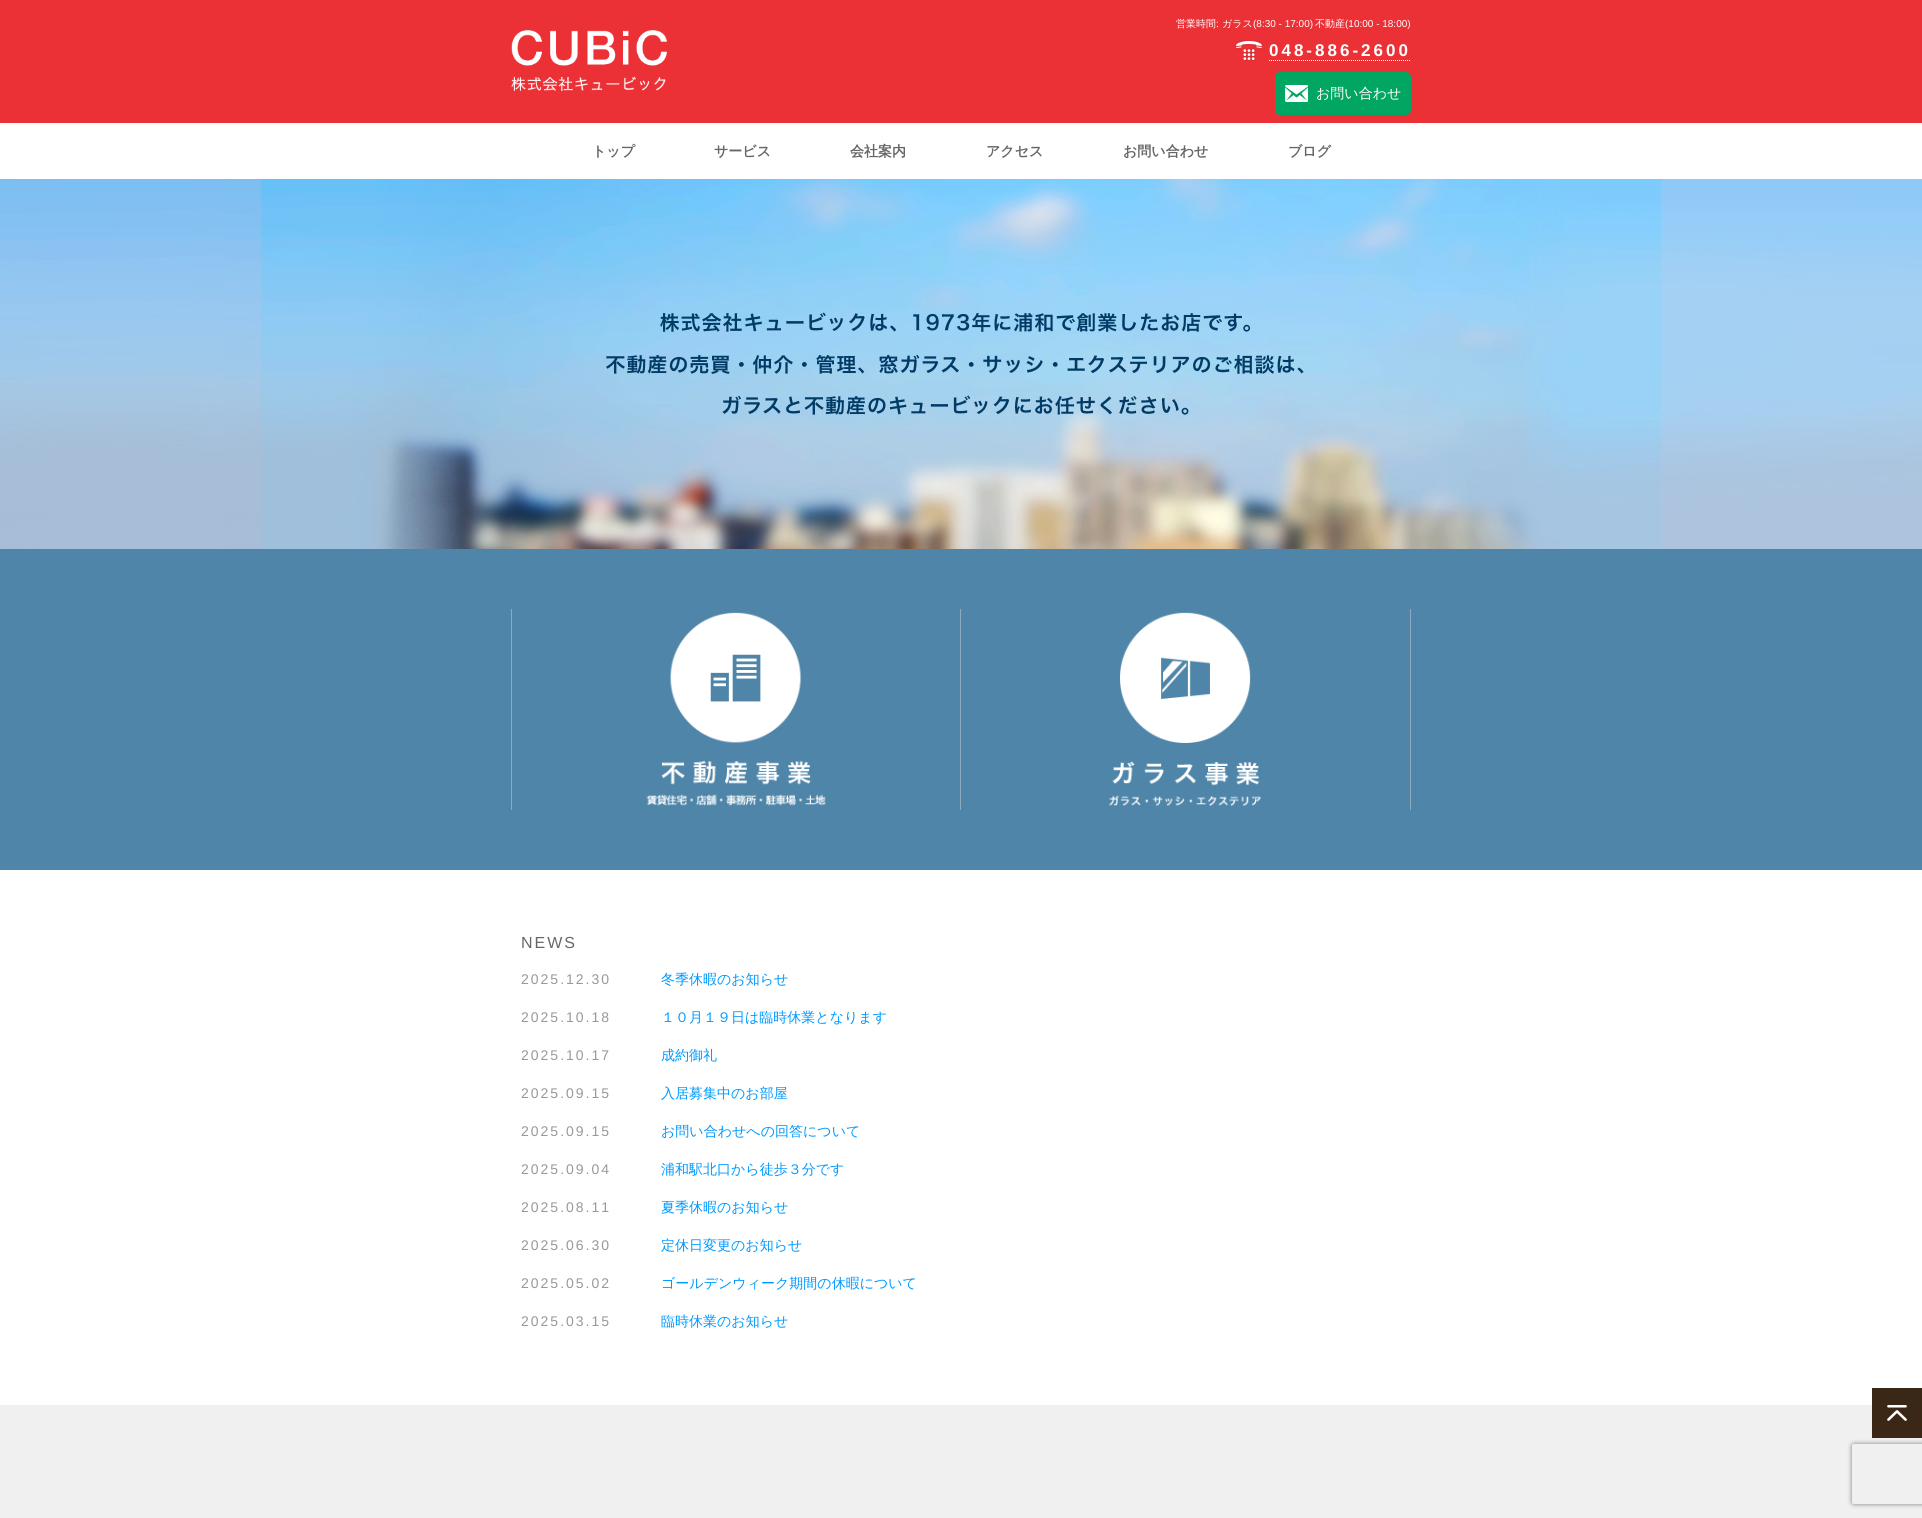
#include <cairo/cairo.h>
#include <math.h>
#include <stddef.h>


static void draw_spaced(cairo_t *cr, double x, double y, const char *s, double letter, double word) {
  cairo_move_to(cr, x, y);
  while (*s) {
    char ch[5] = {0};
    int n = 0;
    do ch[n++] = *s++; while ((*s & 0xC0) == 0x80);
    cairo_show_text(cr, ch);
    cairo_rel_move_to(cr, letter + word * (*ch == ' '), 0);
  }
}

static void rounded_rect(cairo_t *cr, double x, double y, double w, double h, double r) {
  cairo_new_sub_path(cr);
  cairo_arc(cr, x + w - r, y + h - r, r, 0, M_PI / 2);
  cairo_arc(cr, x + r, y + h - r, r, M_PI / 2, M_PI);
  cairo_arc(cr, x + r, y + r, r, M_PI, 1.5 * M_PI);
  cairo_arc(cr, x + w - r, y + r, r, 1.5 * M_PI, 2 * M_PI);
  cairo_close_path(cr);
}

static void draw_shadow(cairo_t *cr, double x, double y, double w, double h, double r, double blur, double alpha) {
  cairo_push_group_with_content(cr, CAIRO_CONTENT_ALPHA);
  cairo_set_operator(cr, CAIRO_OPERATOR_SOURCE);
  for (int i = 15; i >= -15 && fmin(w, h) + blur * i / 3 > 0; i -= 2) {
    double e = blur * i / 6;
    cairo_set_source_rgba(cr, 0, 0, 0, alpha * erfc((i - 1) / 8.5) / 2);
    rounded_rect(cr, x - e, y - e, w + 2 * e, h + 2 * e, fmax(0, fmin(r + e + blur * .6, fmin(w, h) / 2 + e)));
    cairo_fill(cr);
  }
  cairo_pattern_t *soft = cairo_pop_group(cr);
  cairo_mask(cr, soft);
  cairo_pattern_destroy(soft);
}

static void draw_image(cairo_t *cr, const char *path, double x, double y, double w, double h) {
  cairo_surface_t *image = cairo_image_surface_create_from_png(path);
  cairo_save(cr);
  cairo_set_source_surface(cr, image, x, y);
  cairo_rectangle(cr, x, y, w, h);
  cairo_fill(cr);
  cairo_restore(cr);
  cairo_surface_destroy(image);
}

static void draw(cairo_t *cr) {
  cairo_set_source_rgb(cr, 1, 1, 1);
  cairo_paint(cr);
  cairo_set_source_rgb(cr, 235 / 255.0, 49 / 255.0, 54 / 255.0);
  cairo_rectangle(cr, 0, 0, 1922, 123);
  cairo_fill(cr);
  draw_image(cr, "images/1.png", 511, 30, 157, 61);
  draw_image(cr, "images/2.png", 1235, 39, 28, 22);
  cairo_new_path(cr);
  cairo_move_to(cr, 1269, 60.5);
  cairo_line_to(cr, 1411, 60.5);
  cairo_set_source_rgb(cr, 1, 1, 1);
  cairo_set_line_width(cr, 1);
  cairo_set_dash(cr, (double[]){1, 1}, 2, 0);
  cairo_stroke(cr);
  cairo_set_source_rgb(cr, 0, 166 / 255.0, 98 / 255.0);
  rounded_rect(cr, 1275, 72, 136, 43, 5);
  cairo_fill(cr);
  draw_image(cr, "images/3.png", 1285, 85, 23, 17);
  draw_image(cr, "images/4.png", 0, 179, 1922, 370);
  draw_image(cr, "images/5.png", 261, 179, 1400, 370);
  cairo_set_source_rgb(cr, 78 / 255.0, 133 / 255.0, 168 / 255.0);
  cairo_rectangle(cr, 0, 549, 1922, 321);
  cairo_fill(cr);
  cairo_set_source_rgb(cr, 142 / 255.0, 169 / 255.0, 187 / 255.0);
  cairo_rectangle(cr, 960, 609, 1, 201);
  cairo_fill(cr);
  cairo_rectangle(cr, 511, 609, 1, 201);
  cairo_fill(cr);
  draw_image(cr, "images/6.png", 646, 612, 180, 194);
  cairo_rectangle(cr, 1410, 609, 1, 201);
  cairo_fill(cr);
  draw_image(cr, "images/7.png", 1109, 612, 152, 195);
  cairo_set_source_rgb(cr, 240 / 255.0, 240 / 255.0, 240 / 255.0);
  cairo_rectangle(cr, 0, 1405, 1922, 113);
  cairo_fill(cr);
  cairo_save(cr);
  cairo_set_fill_rule(cr, CAIRO_FILL_RULE_EVEN_ODD);
  cairo_new_path(cr);
  cairo_move_to(cr, 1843, 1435);
  cairo_line_to(cr, 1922, 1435);
  cairo_line_to(cr, 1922, 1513);
  cairo_line_to(cr, 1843, 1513);
  cairo_close_path(cr);
  cairo_move_to(cr, 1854, 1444);
  cairo_line_to(cr, 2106, 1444);
  cairo_curve_to(cr, 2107, 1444, 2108, 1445, 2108, 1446);
  cairo_line_to(cr, 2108, 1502);
  cairo_curve_to(cr, 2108, 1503, 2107, 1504, 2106, 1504);
  cairo_line_to(cr, 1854, 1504);
  cairo_curve_to(cr, 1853, 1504, 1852, 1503, 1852, 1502);
  cairo_line_to(cr, 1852, 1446);
  cairo_curve_to(cr, 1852, 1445, 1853, 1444, 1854, 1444);
  cairo_close_path(cr);
  cairo_clip(cr);
  cairo_set_source_rgb(cr, 128 / 255.0, 128 / 255.0, 128 / 255.0);
  draw_shadow(cr, 1852, 1444, 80, 60, 2, 2.5, 1);
  cairo_restore(cr);
  draw_image(cr, "images/8.png", 1872, 1388, 50, 50);
  cairo_select_font_face(cr, "WenQuanYi Zen Hei Medium", CAIRO_FONT_SLANT_NORMAL, CAIRO_FONT_WEIGHT_NORMAL);
  cairo_set_font_size(cr, 10);
  cairo_set_source_rgb(cr, 1, 1, 1);
  cairo_move_to(cr, 1176, 27);
  cairo_show_text(cr, "営業時間");
  cairo_select_font_face(cr, "Liberation Sans", CAIRO_FONT_SLANT_NORMAL, CAIRO_FONT_WEIGHT_NORMAL);
  cairo_move_to(cr, 1216, 27);
  cairo_show_text(cr, ":");
  cairo_select_font_face(cr, "WenQuanYi Zen Hei Medium", CAIRO_FONT_SLANT_NORMAL, CAIRO_FONT_WEIGHT_NORMAL);
  cairo_move_to(cr, 1222, 27);
  cairo_show_text(cr, "ガラス");
  cairo_select_font_face(cr, "Liberation Sans", CAIRO_FONT_SLANT_NORMAL, CAIRO_FONT_WEIGHT_NORMAL);
  cairo_move_to(cr, 1253, 27);
  cairo_show_text(cr, "(8:30 - 17:00)");
  cairo_select_font_face(cr, "WenQuanYi Zen Hei Medium", CAIRO_FONT_SLANT_NORMAL, CAIRO_FONT_WEIGHT_NORMAL);
  cairo_move_to(cr, 1315, 27);
  cairo_show_text(cr, "不動産");
  cairo_select_font_face(cr, "Liberation Sans", CAIRO_FONT_SLANT_NORMAL, CAIRO_FONT_WEIGHT_NORMAL);
  cairo_move_to(cr, 1345, 27);
  cairo_show_text(cr, "(10:00 - 18:00)");
  cairo_select_font_face(cr, "Liberation Sans", CAIRO_FONT_SLANT_NORMAL, CAIRO_FONT_WEIGHT_BOLD);
  cairo_set_font_size(cr, 17);
  draw_spaced(cr, 1269, 56, "048-886-2600", 3, 0);
  cairo_select_font_face(cr, "WenQuanYi Zen Hei Medium", CAIRO_FONT_SLANT_NORMAL, CAIRO_FONT_WEIGHT_NORMAL);
  cairo_set_font_size(cr, 14);
  cairo_move_to(cr, 1316, 98);
  cairo_show_text(cr, "お問い合わせ");
  cairo_select_font_face(cr, "WenQuanYi Zen Hei", CAIRO_FONT_SLANT_NORMAL, CAIRO_FONT_WEIGHT_BOLD);
  cairo_set_source_rgb(cr, 102 / 255.0, 102 / 255.0, 102 / 255.0);
  cairo_move_to(cr, 592, 156);
  cairo_show_text(cr, "トップ");
  cairo_move_to(cr, 714, 156);
  cairo_show_text(cr, "サービス");
  cairo_move_to(cr, 850, 156);
  cairo_show_text(cr, "会社案内");
  cairo_move_to(cr, 986, 156);
  cairo_show_text(cr, "アクセス");
  cairo_move_to(cr, 1123, 156);
  cairo_show_text(cr, "お問い合わせ");
  cairo_move_to(cr, 1288, 156);
  cairo_show_text(cr, "ブログ");
  cairo_select_font_face(cr, "Liberation Sans", CAIRO_FONT_SLANT_NORMAL, CAIRO_FONT_WEIGHT_NORMAL);
  cairo_set_font_size(cr, 16);
  draw_spaced(cr, 521, 948, "NEWS", 2, 0);
  cairo_set_font_size(cr, 14);
  cairo_set_source_rgb(cr, 153 / 255.0, 153 / 255.0, 153 / 255.0);
  draw_spaced(cr, 521, 984, "2025.12.30", 2, 0);
  cairo_select_font_face(cr, "WenQuanYi Zen Hei Medium", CAIRO_FONT_SLANT_NORMAL, CAIRO_FONT_WEIGHT_NORMAL);
  cairo_set_source_rgb(cr, 0, 153 / 255.0, 1);
  cairo_move_to(cr, 661, 984);
  cairo_show_text(cr, "冬季休暇のお知らせ");
  cairo_select_font_face(cr, "Liberation Sans", CAIRO_FONT_SLANT_NORMAL, CAIRO_FONT_WEIGHT_NORMAL);
  cairo_set_source_rgb(cr, 153 / 255.0, 153 / 255.0, 153 / 255.0);
  draw_spaced(cr, 521, 1022, "2025.10.18", 2, 0);
  cairo_select_font_face(cr, "WenQuanYi Zen Hei Medium", CAIRO_FONT_SLANT_NORMAL, CAIRO_FONT_WEIGHT_NORMAL);
  cairo_set_source_rgb(cr, 0, 153 / 255.0, 1);
  cairo_move_to(cr, 661, 1022);
  cairo_show_text(cr, "１０月１９日は臨時休業となります");
  cairo_select_font_face(cr, "Liberation Sans", CAIRO_FONT_SLANT_NORMAL, CAIRO_FONT_WEIGHT_NORMAL);
  cairo_set_source_rgb(cr, 153 / 255.0, 153 / 255.0, 153 / 255.0);
  draw_spaced(cr, 521, 1060, "2025.10.17", 2, 0);
  cairo_select_font_face(cr, "WenQuanYi Zen Hei Medium", CAIRO_FONT_SLANT_NORMAL, CAIRO_FONT_WEIGHT_NORMAL);
  cairo_set_source_rgb(cr, 0, 153 / 255.0, 1);
  cairo_move_to(cr, 661, 1060);
  cairo_show_text(cr, "成約御礼");
  cairo_select_font_face(cr, "Liberation Sans", CAIRO_FONT_SLANT_NORMAL, CAIRO_FONT_WEIGHT_NORMAL);
  cairo_set_source_rgb(cr, 153 / 255.0, 153 / 255.0, 153 / 255.0);
  draw_spaced(cr, 521, 1098, "2025.09.15", 2, 0);
  cairo_select_font_face(cr, "WenQuanYi Zen Hei Medium", CAIRO_FONT_SLANT_NORMAL, CAIRO_FONT_WEIGHT_NORMAL);
  cairo_set_source_rgb(cr, 0, 153 / 255.0, 1);
  cairo_move_to(cr, 661, 1098);
  cairo_show_text(cr, "入居募集中のお部屋");
  cairo_select_font_face(cr, "Liberation Sans", CAIRO_FONT_SLANT_NORMAL, CAIRO_FONT_WEIGHT_NORMAL);
  cairo_set_source_rgb(cr, 153 / 255.0, 153 / 255.0, 153 / 255.0);
  draw_spaced(cr, 521, 1136, "2025.09.15", 2, 0);
  cairo_select_font_face(cr, "WenQuanYi Zen Hei Medium", CAIRO_FONT_SLANT_NORMAL, CAIRO_FONT_WEIGHT_NORMAL);
  cairo_set_source_rgb(cr, 0, 153 / 255.0, 1);
  cairo_move_to(cr, 661, 1136);
  cairo_show_text(cr, "お問い合わせへの回答について");
  cairo_select_font_face(cr, "Liberation Sans", CAIRO_FONT_SLANT_NORMAL, CAIRO_FONT_WEIGHT_NORMAL);
  cairo_set_source_rgb(cr, 153 / 255.0, 153 / 255.0, 153 / 255.0);
  draw_spaced(cr, 521, 1174, "2025.09.04", 2, 0);
  cairo_select_font_face(cr, "WenQuanYi Zen Hei Medium", CAIRO_FONT_SLANT_NORMAL, CAIRO_FONT_WEIGHT_NORMAL);
  cairo_set_source_rgb(cr, 0, 153 / 255.0, 1);
  cairo_move_to(cr, 661, 1174);
  cairo_show_text(cr, "浦和駅北口から徒歩３分です");
  cairo_select_font_face(cr, "Liberation Sans", CAIRO_FONT_SLANT_NORMAL, CAIRO_FONT_WEIGHT_NORMAL);
  cairo_set_source_rgb(cr, 153 / 255.0, 153 / 255.0, 153 / 255.0);
  draw_spaced(cr, 521, 1212, "2025.08.11", 2, 0);
  cairo_select_font_face(cr, "WenQuanYi Zen Hei Medium", CAIRO_FONT_SLANT_NORMAL, CAIRO_FONT_WEIGHT_NORMAL);
  cairo_set_source_rgb(cr, 0, 153 / 255.0, 1);
  cairo_move_to(cr, 661, 1212);
  cairo_show_text(cr, "夏季休暇のお知らせ");
  cairo_select_font_face(cr, "Liberation Sans", CAIRO_FONT_SLANT_NORMAL, CAIRO_FONT_WEIGHT_NORMAL);
  cairo_set_source_rgb(cr, 153 / 255.0, 153 / 255.0, 153 / 255.0);
  draw_spaced(cr, 521, 1250, "2025.06.30", 2, 0);
  cairo_select_font_face(cr, "WenQuanYi Zen Hei Medium", CAIRO_FONT_SLANT_NORMAL, CAIRO_FONT_WEIGHT_NORMAL);
  cairo_set_source_rgb(cr, 0, 153 / 255.0, 1);
  cairo_move_to(cr, 661, 1250);
  cairo_show_text(cr, "定休日変更のお知らせ");
  cairo_select_font_face(cr, "Liberation Sans", CAIRO_FONT_SLANT_NORMAL, CAIRO_FONT_WEIGHT_NORMAL);
  cairo_set_source_rgb(cr, 153 / 255.0, 153 / 255.0, 153 / 255.0);
  draw_spaced(cr, 521, 1288, "2025.05.02", 2, 0);
  cairo_select_font_face(cr, "WenQuanYi Zen Hei Medium", CAIRO_FONT_SLANT_NORMAL, CAIRO_FONT_WEIGHT_NORMAL);
  cairo_set_source_rgb(cr, 0, 153 / 255.0, 1);
  cairo_move_to(cr, 661, 1288);
  cairo_show_text(cr, "ゴールデンウィーク期間の休暇について");
  cairo_select_font_face(cr, "Liberation Sans", CAIRO_FONT_SLANT_NORMAL, CAIRO_FONT_WEIGHT_NORMAL);
  cairo_set_source_rgb(cr, 153 / 255.0, 153 / 255.0, 153 / 255.0);
  draw_spaced(cr, 521, 1326, "2025.03.15", 2, 0);
  cairo_select_font_face(cr, "WenQuanYi Zen Hei Medium", CAIRO_FONT_SLANT_NORMAL, CAIRO_FONT_WEIGHT_NORMAL);
  cairo_set_source_rgb(cr, 0, 153 / 255.0, 1);
  cairo_move_to(cr, 661, 1326);
  cairo_show_text(cr, "臨時休業のお知らせ");
}

int main(void) {
  cairo_surface_t *surface = cairo_image_surface_create(CAIRO_FORMAT_RGB24, 1922, 1518);
  cairo_t *cr = cairo_create(surface);
  cairo_font_options_t *options = cairo_font_options_create();
  cairo_font_options_set_hint_metrics(options, CAIRO_HINT_METRICS_OFF);
  cairo_font_options_set_hint_style(options, CAIRO_HINT_STYLE_NONE);
  cairo_set_font_options(cr, options);
  cairo_set_miter_limit(cr, 4);
  draw(cr);
  cairo_surface_write_to_png(surface, "out.png");
  cairo_font_options_destroy(options);
  cairo_destroy(cr);
  cairo_surface_destroy(surface);
  return 0;
}
